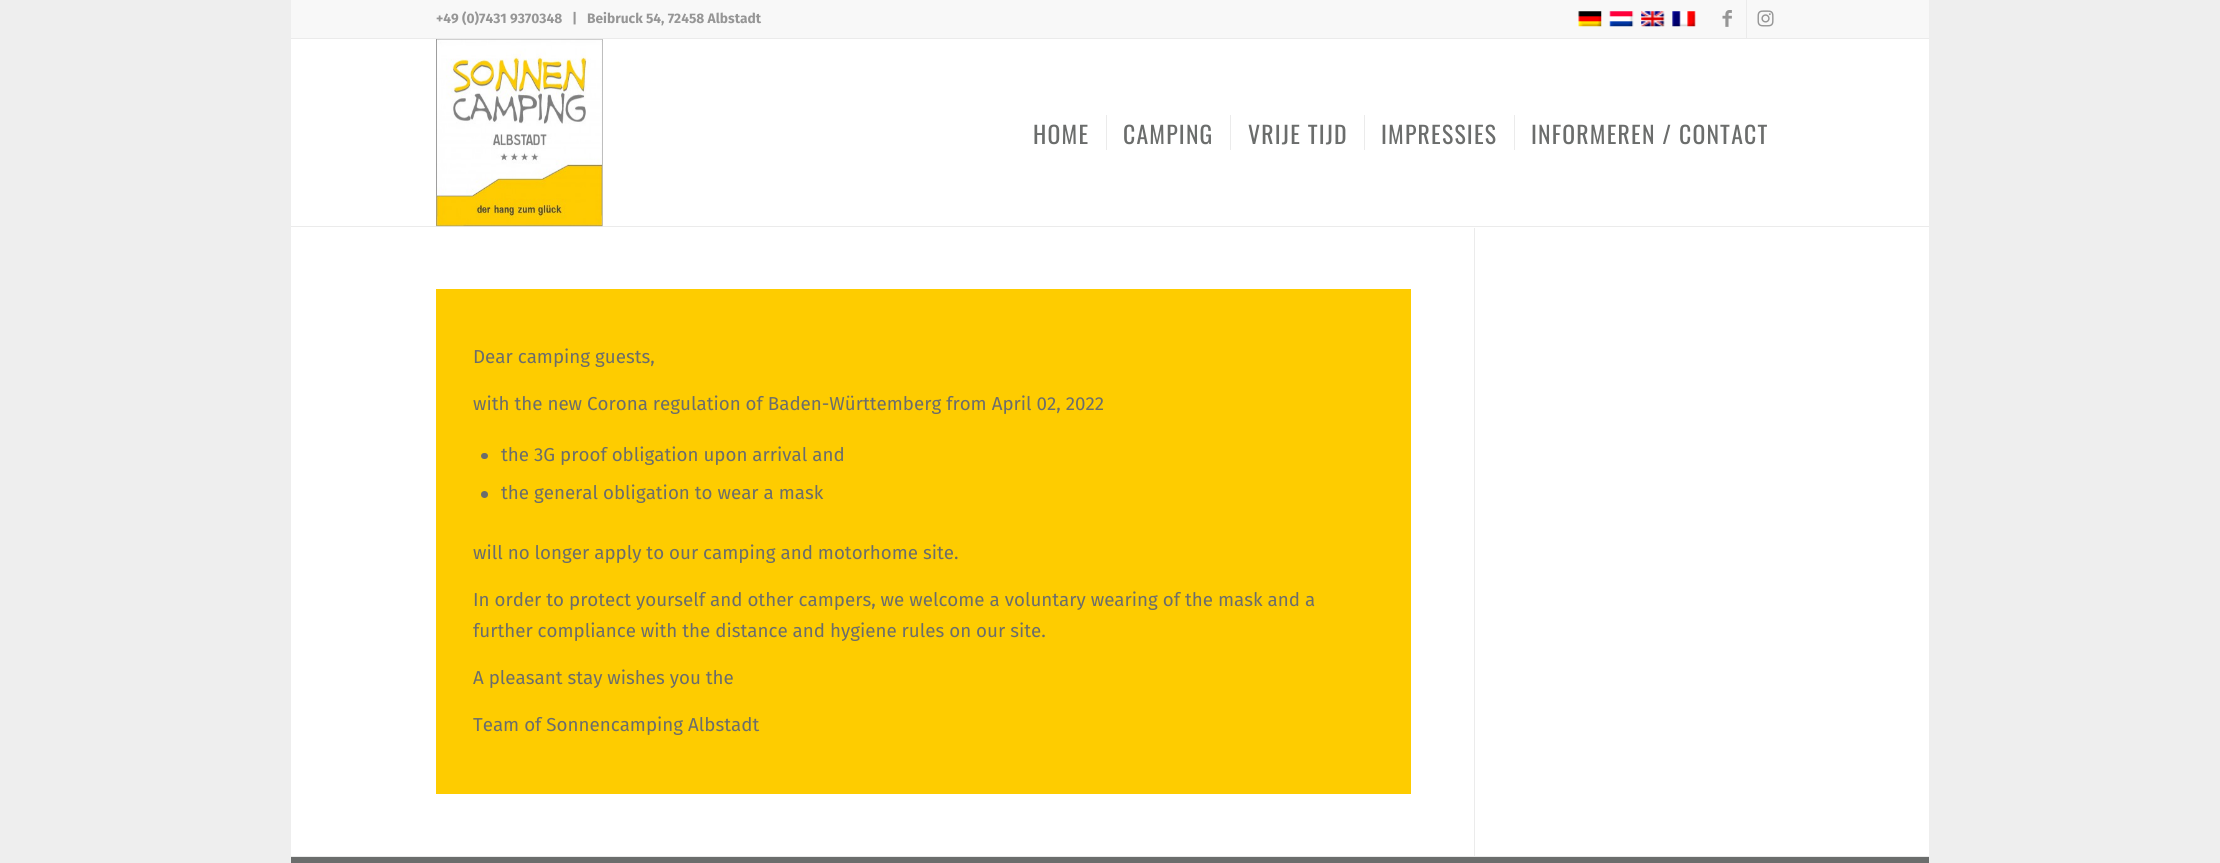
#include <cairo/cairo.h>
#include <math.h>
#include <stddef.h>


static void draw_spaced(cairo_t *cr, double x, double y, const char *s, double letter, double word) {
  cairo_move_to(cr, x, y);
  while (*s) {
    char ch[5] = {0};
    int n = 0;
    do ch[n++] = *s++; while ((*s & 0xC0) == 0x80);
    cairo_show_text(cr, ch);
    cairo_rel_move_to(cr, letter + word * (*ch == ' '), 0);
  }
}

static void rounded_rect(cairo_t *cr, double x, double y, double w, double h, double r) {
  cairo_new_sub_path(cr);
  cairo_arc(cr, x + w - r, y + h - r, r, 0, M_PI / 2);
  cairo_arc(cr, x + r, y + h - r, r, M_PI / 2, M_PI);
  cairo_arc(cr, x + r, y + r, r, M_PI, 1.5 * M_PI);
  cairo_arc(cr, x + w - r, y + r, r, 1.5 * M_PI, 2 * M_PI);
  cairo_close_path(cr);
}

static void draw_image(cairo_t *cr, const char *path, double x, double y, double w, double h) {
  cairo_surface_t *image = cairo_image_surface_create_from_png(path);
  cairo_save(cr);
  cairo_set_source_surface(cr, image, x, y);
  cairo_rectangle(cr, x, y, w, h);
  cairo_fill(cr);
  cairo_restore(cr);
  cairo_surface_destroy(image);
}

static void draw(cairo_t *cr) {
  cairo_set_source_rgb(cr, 238 / 255.0, 238 / 255.0, 238 / 255.0);
  cairo_paint(cr);
  cairo_set_source_rgb(cr, 248 / 255.0, 248 / 255.0, 248 / 255.0);
  cairo_rectangle(cr, 291, 0, 1638, 38);
  cairo_fill(cr);
  cairo_set_source_rgb(cr, 235 / 255.0, 235 / 255.0, 235 / 255.0);
  cairo_rectangle(cr, 291, 38, 1638, 1);
  cairo_fill(cr);
  draw_image(cr, "images/1.png", 1578, 11, 24, 16);
  draw_image(cr, "images/2.png", 1609, 11, 25, 16);
  draw_image(cr, "images/3.png", 1641, 11, 24, 16);
  draw_image(cr, "images/4.png", 1672, 11, 24, 16);
  cairo_rectangle(cr, 1746, 0, 1, 38);
  cairo_fill(cr);
  draw_image(cr, "images/5.png", 1722, 10, 10, 17);
  draw_image(cr, "images/6.png", 1757, 10, 17, 17);
  cairo_set_source_rgb(cr, 1, 1, 1);
  cairo_rectangle(cr, 291, 39, 1638, 817);
  cairo_fill(cr);
  cairo_set_source_rgb(cr, 235 / 255.0, 235 / 255.0, 235 / 255.0);
  cairo_rectangle(cr, 1474, 226, 1, 630);
  cairo_fill(cr);
  cairo_set_source_rgb(cr, 254 / 255.0, 254 / 255.0, 254 / 255.0);
  cairo_rectangle(cr, 1474, 226, 1, 2);
  cairo_fill(cr);
  cairo_set_source_rgb(cr, 235 / 255.0, 235 / 255.0, 235 / 255.0);
  cairo_rectangle(cr, 291, 226, 1638, 1);
  cairo_fill(cr);
  draw_image(cr, "images/7.png", 436, 39, 167, 188);
  cairo_rectangle(cr, 1106, 115, 1, 35);
  cairo_fill(cr);
  cairo_rectangle(cr, 1230, 115, 1, 35);
  cairo_fill(cr);
  cairo_rectangle(cr, 1364, 115, 1, 35);
  cairo_fill(cr);
  cairo_rectangle(cr, 1514, 115, 1, 35);
  cairo_fill(cr);
  cairo_set_source_rgb(cr, 254 / 255.0, 204 / 255.0, 0);
  cairo_rectangle(cr, 436, 289, 975, 505);
  cairo_fill(cr);
  cairo_set_source_rgb(cr, 107 / 255.0, 109 / 255.0, 108 / 255.0);
  rounded_rect(cr, 481, 453, 7, 6, 3);
  cairo_fill(cr);
  cairo_arc(cr, 484.5, 494.5, 3.5, 0, 2 * M_PI);
  cairo_fill(cr);
  cairo_rectangle(cr, 291, 857, 1638, 6);
  cairo_fill(cr);
  cairo_set_source_rgb(cr, 235 / 255.0, 235 / 255.0, 235 / 255.0);
  cairo_rectangle(cr, 291, 856, 1638, 1);
  cairo_fill(cr);
  cairo_select_font_face(cr, "Fira Sans", CAIRO_FONT_SLANT_NORMAL, CAIRO_FONT_WEIGHT_BOLD);
  cairo_set_font_size(cr, 13.75);
  cairo_set_source_rgb(cr, 150 / 255.0, 150 / 255.0, 150 / 255.0);
  cairo_move_to(cr, 436, 23);
  cairo_show_text(cr, "+49 (0)7431 9370348");
  cairo_move_to(cr, 572, 23);
  cairo_show_text(cr, "|");
  cairo_move_to(cr, 587, 23);
  cairo_show_text(cr, "Beibruck 54, 72458 Albstadt");
  cairo_select_font_face(cr, "Oswald", CAIRO_FONT_SLANT_NORMAL, CAIRO_FONT_WEIGHT_NORMAL);
  cairo_set_font_size(cr, 23.75);
  cairo_set_source_rgb(cr, 107 / 255.0, 109 / 255.0, 108 / 255.0);
  draw_spaced(cr, 1033, 144, "HOME", 1.2, 0);
  draw_spaced(cr, 1123, 144, "CAMPING", 1.2, 0);
  draw_spaced(cr, 1248, 144, "VRIJE TIJD", 1.2, 0);
  draw_spaced(cr, 1381, 144, "IMPRESSIES", 1.2, 0);
  draw_spaced(cr, 1531, 144, "INFORMEREN / CONTACT", 1.2, 0);
  cairo_select_font_face(cr, "Fira Sans", CAIRO_FONT_SLANT_NORMAL, CAIRO_FONT_WEIGHT_NORMAL);
  cairo_set_font_size(cr, 18.75);
  cairo_move_to(cr, 473, 363);
  cairo_show_text(cr, "Dear camping guests,");
  cairo_move_to(cr, 473, 410);
  cairo_show_text(cr, "with the new Corona regulation of Baden-Württemberg from April 02, 2022");
  cairo_move_to(cr, 501, 461);
  cairo_show_text(cr, "the 3G proof obligation upon arrival and");
  cairo_move_to(cr, 501, 499);
  cairo_show_text(cr, "the general obligation to wear a mask");
  cairo_move_to(cr, 473, 559);
  cairo_show_text(cr, "will no longer apply to our camping and motorhome site.");
  cairo_move_to(cr, 473, 606);
  cairo_show_text(cr, "In order to protect yourself and other campers, we welcome a voluntary wearing of the mask and a");
  cairo_move_to(cr, 473, 637);
  cairo_show_text(cr, "further compliance with the distance and hygiene rules on our site.");
  cairo_move_to(cr, 473, 684);
  cairo_show_text(cr, "A pleasant stay wishes you the");
  cairo_move_to(cr, 473, 731);
  cairo_show_text(cr, "Team of Sonnencamping Albstadt");
}

int main(void) {
  cairo_surface_t *surface = cairo_image_surface_create(CAIRO_FORMAT_RGB24, 2220, 863);
  cairo_t *cr = cairo_create(surface);
  cairo_font_options_t *options = cairo_font_options_create();
  cairo_font_options_set_hint_metrics(options, CAIRO_HINT_METRICS_OFF);
  cairo_font_options_set_hint_style(options, CAIRO_HINT_STYLE_NONE);
  cairo_set_font_options(cr, options);
  cairo_set_miter_limit(cr, 4);
  draw(cr);
  cairo_surface_write_to_png(surface, "out.png");
  cairo_font_options_destroy(options);
  cairo_destroy(cr);
  cairo_surface_destroy(surface);
  return 0;
}
